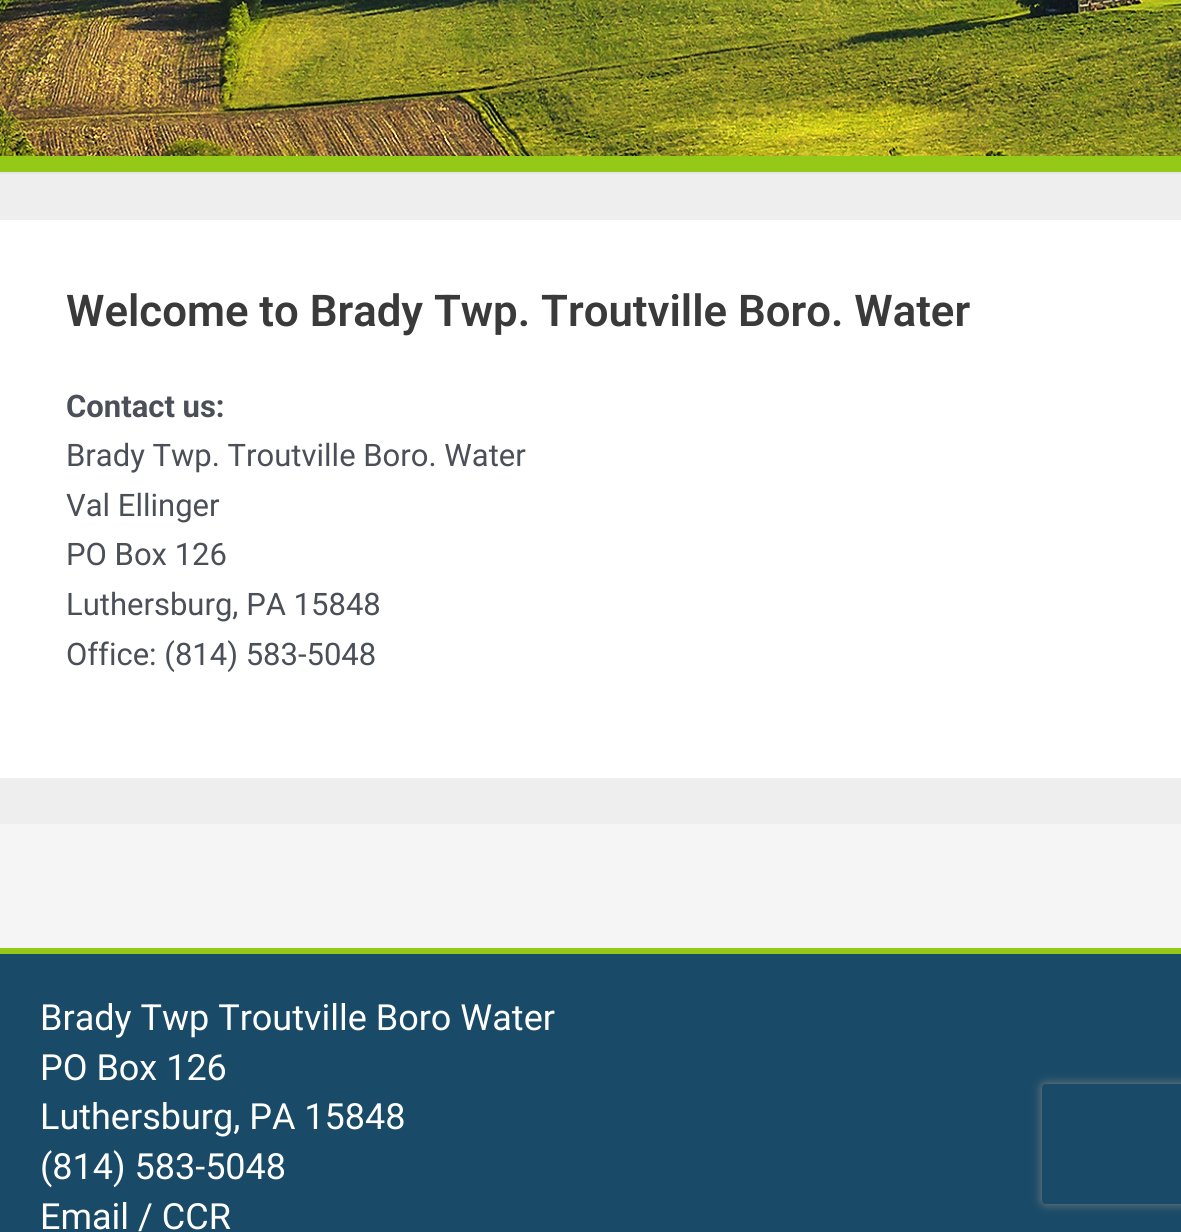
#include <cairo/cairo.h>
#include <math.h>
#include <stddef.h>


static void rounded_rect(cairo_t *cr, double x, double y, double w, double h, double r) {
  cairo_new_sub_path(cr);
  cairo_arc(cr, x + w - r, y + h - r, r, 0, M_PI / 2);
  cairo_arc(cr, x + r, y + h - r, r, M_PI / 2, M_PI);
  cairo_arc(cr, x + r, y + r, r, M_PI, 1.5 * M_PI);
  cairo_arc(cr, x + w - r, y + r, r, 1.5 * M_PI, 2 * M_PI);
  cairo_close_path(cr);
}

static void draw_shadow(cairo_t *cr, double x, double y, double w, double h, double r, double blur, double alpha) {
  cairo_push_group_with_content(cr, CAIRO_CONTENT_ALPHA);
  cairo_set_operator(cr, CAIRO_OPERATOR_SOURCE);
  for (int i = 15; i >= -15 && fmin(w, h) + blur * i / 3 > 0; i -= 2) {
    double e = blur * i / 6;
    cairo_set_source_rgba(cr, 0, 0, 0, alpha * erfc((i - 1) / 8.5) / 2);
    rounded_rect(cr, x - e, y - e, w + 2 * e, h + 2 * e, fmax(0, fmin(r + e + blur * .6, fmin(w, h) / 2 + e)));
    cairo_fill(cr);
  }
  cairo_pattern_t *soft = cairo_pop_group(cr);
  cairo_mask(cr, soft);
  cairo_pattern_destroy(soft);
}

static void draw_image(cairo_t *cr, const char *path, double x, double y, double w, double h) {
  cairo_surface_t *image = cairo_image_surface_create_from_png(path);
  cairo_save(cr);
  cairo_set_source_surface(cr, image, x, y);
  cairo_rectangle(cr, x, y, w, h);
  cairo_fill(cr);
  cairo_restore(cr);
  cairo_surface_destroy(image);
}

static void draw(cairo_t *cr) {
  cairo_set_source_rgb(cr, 245 / 255.0, 245 / 255.0, 245 / 255.0);
  cairo_paint(cr);
  cairo_set_source_rgb(cr, 229 / 255.0, 229 / 255.0, 229 / 255.0);
  cairo_rectangle(cr, 0, 172, 1181, 2);
  cairo_fill(cr);
  cairo_set_source_rgb(cr, 148 / 255.0, 201 / 255.0, 24 / 255.0);
  cairo_rectangle(cr, 0, 156, 1181, 16);
  cairo_fill(cr);
  draw_image(cr, "images/1.png", 0, 0, 1181, 156);
  cairo_set_source_rgb(cr, 238 / 255.0, 238 / 255.0, 238 / 255.0);
  cairo_rectangle(cr, 0, 174, 1181, 650);
  cairo_fill(cr);
  cairo_set_source_rgb(cr, 1, 1, 1);
  cairo_rectangle(cr, 0, 220, 1181, 558);
  cairo_fill(cr);
  cairo_set_source_rgb(cr, 25 / 255.0, 74 / 255.0, 103 / 255.0);
  cairo_rectangle(cr, 0, 954, 1181, 278);
  cairo_fill(cr);
  cairo_set_source_rgb(cr, 148 / 255.0, 201 / 255.0, 24 / 255.0);
  cairo_rectangle(cr, 0, 948, 1181, 6);
  cairo_fill(cr);
  cairo_save(cr);
  cairo_set_fill_rule(cr, CAIRO_FILL_RULE_EVEN_ODD);
  cairo_new_path(cr);
  cairo_move_to(cr, 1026, 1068);
  cairo_line_to(cr, 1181, 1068);
  cairo_line_to(cr, 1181, 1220);
  cairo_line_to(cr, 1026, 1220);
  cairo_close_path(cr);
  cairo_move_to(cr, 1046, 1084);
  cairo_line_to(cr, 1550, 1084);
  cairo_curve_to(cr, 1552, 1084, 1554, 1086, 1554, 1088);
  cairo_line_to(cr, 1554, 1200);
  cairo_curve_to(cr, 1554, 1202, 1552, 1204, 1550, 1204);
  cairo_line_to(cr, 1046, 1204);
  cairo_curve_to(cr, 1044, 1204, 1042, 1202, 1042, 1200);
  cairo_line_to(cr, 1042, 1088);
  cairo_curve_to(cr, 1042, 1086, 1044, 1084, 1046, 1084);
  cairo_close_path(cr);
  cairo_clip(cr);
  cairo_set_source_rgb(cr, 128 / 255.0, 128 / 255.0, 128 / 255.0);
  draw_shadow(cr, 1042, 1084, 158, 120, 4, 5, 1);
  cairo_restore(cr);
  cairo_select_font_face(cr, "Roboto SemiBold", CAIRO_FONT_SLANT_NORMAL, CAIRO_FONT_WEIGHT_NORMAL);
  cairo_set_font_size(cr, 43.75);
  cairo_set_source_rgb(cr, 58 / 255.0, 58 / 255.0, 58 / 255.0);
  cairo_move_to(cr, 66, 326);
  cairo_show_text(cr, "Welcome to Brady Twp. Troutville Boro. Water");
  cairo_select_font_face(cr, "Roboto", CAIRO_FONT_SLANT_NORMAL, CAIRO_FONT_WEIGHT_BOLD);
  cairo_set_font_size(cr, 31);
  cairo_set_source_rgb(cr, 75 / 255.0, 79 / 255.0, 88 / 255.0);
  cairo_move_to(cr, 66, 417);
  cairo_show_text(cr, "Contact us:");
  cairo_select_font_face(cr, "Roboto", CAIRO_FONT_SLANT_NORMAL, CAIRO_FONT_WEIGHT_NORMAL);
  cairo_move_to(cr, 66, 466);
  cairo_show_text(cr, "Brady Twp. Troutville Boro. Water");
  cairo_move_to(cr, 66, 516);
  cairo_show_text(cr, "Val Ellinger");
  cairo_move_to(cr, 66, 565);
  cairo_show_text(cr, "PO Box 126");
  cairo_move_to(cr, 66, 615);
  cairo_show_text(cr, "Luthersburg, PA 15848");
  cairo_move_to(cr, 66, 665);
  cairo_show_text(cr, "Office: (814) 583-5048");
  cairo_set_font_size(cr, 36);
  cairo_set_source_rgb(cr, 1, 1, 1);
  cairo_move_to(cr, 40, 1030);
  cairo_show_text(cr, "Brady Twp Troutville Boro Water");
  cairo_move_to(cr, 40, 1080);
  cairo_show_text(cr, "PO Box 126");
  cairo_move_to(cr, 40, 1129);
  cairo_show_text(cr, "Luthersburg, PA 15848");
  cairo_move_to(cr, 40, 1179);
  cairo_show_text(cr, "(814) 583-5048");
  cairo_move_to(cr, 40, 1229);
  cairo_show_text(cr, "Email / CCR");
}

int main(void) {
  cairo_surface_t *surface = cairo_image_surface_create(CAIRO_FORMAT_RGB24, 1181, 1232);
  cairo_t *cr = cairo_create(surface);
  cairo_font_options_t *options = cairo_font_options_create();
  cairo_font_options_set_hint_metrics(options, CAIRO_HINT_METRICS_OFF);
  cairo_font_options_set_hint_style(options, CAIRO_HINT_STYLE_NONE);
  cairo_set_font_options(cr, options);
  cairo_set_miter_limit(cr, 4);
  draw(cr);
  cairo_surface_write_to_png(surface, "out.png");
  cairo_font_options_destroy(options);
  cairo_destroy(cr);
  cairo_surface_destroy(surface);
  return 0;
}
